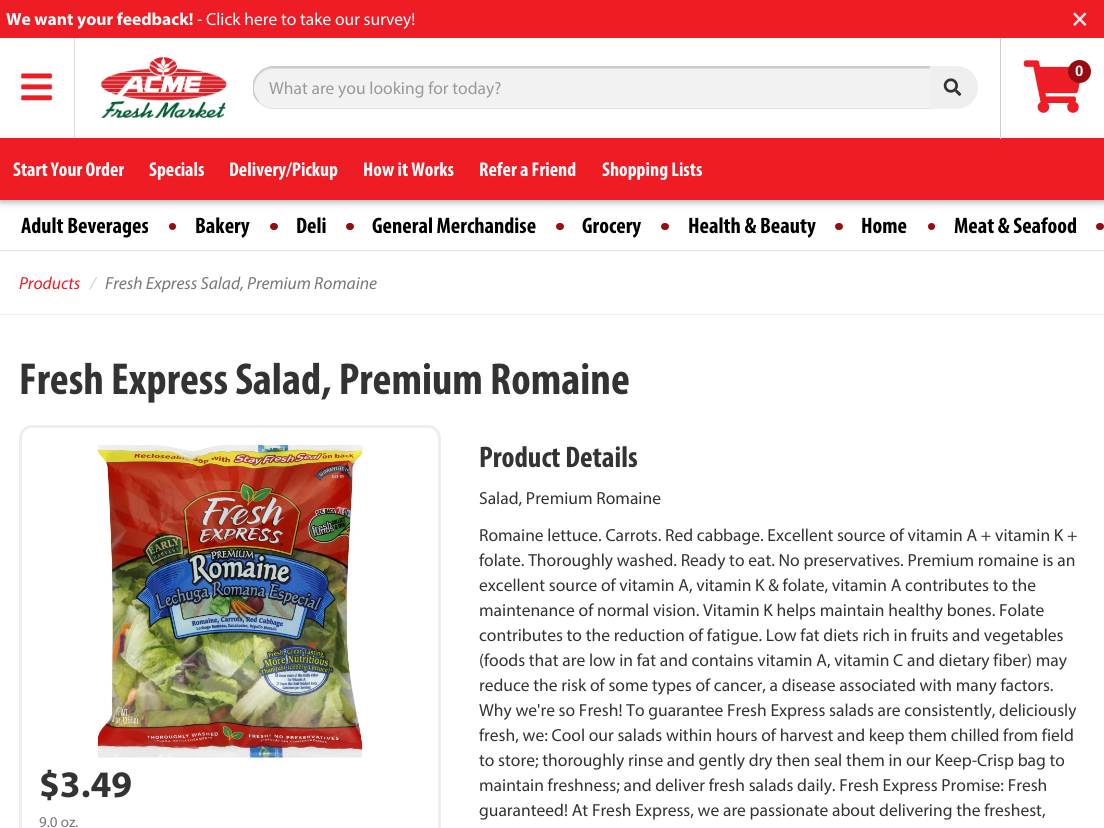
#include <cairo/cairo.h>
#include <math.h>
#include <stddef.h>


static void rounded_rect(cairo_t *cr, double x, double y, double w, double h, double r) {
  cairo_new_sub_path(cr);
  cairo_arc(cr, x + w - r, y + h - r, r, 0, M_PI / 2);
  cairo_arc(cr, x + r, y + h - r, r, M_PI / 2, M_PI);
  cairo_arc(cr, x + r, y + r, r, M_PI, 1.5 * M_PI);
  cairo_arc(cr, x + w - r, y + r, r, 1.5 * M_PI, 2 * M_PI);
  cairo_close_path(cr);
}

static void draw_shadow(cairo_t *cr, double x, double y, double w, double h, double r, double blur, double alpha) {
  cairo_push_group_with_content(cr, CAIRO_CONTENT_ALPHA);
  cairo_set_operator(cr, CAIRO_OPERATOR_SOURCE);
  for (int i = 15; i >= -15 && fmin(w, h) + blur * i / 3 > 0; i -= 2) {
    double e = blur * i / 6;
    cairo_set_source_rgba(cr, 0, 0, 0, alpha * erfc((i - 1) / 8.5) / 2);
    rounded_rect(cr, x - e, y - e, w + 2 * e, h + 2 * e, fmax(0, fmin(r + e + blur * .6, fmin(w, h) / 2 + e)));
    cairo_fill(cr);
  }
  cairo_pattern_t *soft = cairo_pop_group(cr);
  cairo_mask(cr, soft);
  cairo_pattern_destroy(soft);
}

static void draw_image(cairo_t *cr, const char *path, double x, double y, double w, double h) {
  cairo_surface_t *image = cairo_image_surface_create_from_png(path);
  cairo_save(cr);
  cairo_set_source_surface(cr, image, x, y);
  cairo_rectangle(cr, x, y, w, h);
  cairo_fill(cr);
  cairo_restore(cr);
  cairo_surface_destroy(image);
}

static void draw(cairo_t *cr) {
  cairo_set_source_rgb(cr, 1, 1, 1);
  cairo_paint(cr);
  cairo_set_source_rgb(cr, 238 / 255.0, 28 / 255.0, 36 / 255.0);
  cairo_rectangle(cr, 0, 0, 1104, 38);
  cairo_fill(cr);
  cairo_set_source_rgb(cr, 0, 0, 0);
  draw_shadow(cr, 0, 140, 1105, 63, 0, 3, 0.25);
  cairo_set_source_rgb(cr, 221 / 255.0, 221 / 255.0, 221 / 255.0);
  cairo_rectangle(cr, 74, 38, 1, 100);
  cairo_fill(cr);
  draw_image(cr, "images/1.png", 21, 73, 31, 28);
  draw_image(cr, "images/2.png", 100, 57, 127, 61);
  cairo_set_source_rgb(cr, 238 / 255.0, 28 / 255.0, 36 / 255.0);
  cairo_rectangle(cr, 0, 138, 1104, 62);
  cairo_fill(cr);
  cairo_set_source_rgb(cr, 204 / 255.0, 204 / 255.0, 204 / 255.0);
  cairo_rectangle(cr, 1000, 38, 1, 101);
  cairo_fill(cr);
  draw_image(cr, "images/3.png", 1023, 60, 57, 53);
  cairo_set_source_rgb(cr, 153 / 255.0, 11 / 255.0, 17 / 255.0);
  cairo_arc(cr, 1079.5, 71.5, 11.5, 0, 2 * M_PI);
  cairo_fill(cr);
  cairo_set_source_rgb(cr, 242 / 255.0, 242 / 255.0, 242 / 255.0);
  cairo_new_path(cr);
  cairo_move_to(cr, 274.5, 66);
  cairo_line_to(cr, 931, 66);
  cairo_line_to(cr, 931, 109);
  cairo_line_to(cr, 274.5, 109);
  cairo_curve_to(cr, 262.5, 109, 253, 99.5, 253, 87.5);
  cairo_curve_to(cr, 253, 75.5, 262.5, 66, 274.5, 66);
  cairo_close_path(cr);
  cairo_fill(cr);
  cairo_set_source_rgb(cr, 224 / 255.0, 224 / 255.0, 224 / 255.0);
  cairo_new_path(cr);
  cairo_move_to(cr, 274, 69);
  cairo_line_to(cr, 930, 69);
  cairo_line_to(cr, 930, 68);
  cairo_line_to(cr, 274, 68);
  cairo_curve_to(cr, 263, 68, 254, 77, 254, 88);
  cairo_line_to(cr, 254, 89);
  cairo_curve_to(cr, 254, 78, 263, 69, 274, 69);
  cairo_close_path(cr);
  cairo_fill(cr);
  cairo_set_source_rgb(cr, 204 / 255.0, 204 / 255.0, 204 / 255.0);
  cairo_new_path(cr);
  cairo_move_to(cr, 274, 68);
  cairo_curve_to(cr, 268, 68, 263, 70, 260, 74);
  cairo_line_to(cr, 259, 72);
  cairo_curve_to(cr, 262, 69, 266, 67, 271, 66);
  cairo_line_to(cr, 931, 66);
  cairo_line_to(cr, 930, 68);
  cairo_close_path(cr);
  cairo_fill(cr);
  cairo_set_source_rgb(cr, 226 / 255.0, 226 / 255.0, 226 / 255.0);
  cairo_new_path(cr);
  cairo_move_to(cr, 271, 109);
  cairo_curve_to(cr, 266, 108, 262, 106, 259, 103);
  cairo_line_to(cr, 260, 102);
  cairo_curve_to(cr, 263, 106, 268, 108, 274, 108);
  cairo_line_to(cr, 930, 108);
  cairo_line_to(cr, 931, 109);
  cairo_close_path(cr);
  cairo_fill(cr);
  cairo_save(cr);
  cairo_rectangle(cr, 253, 38, 725, 71);
  cairo_clip(cr);
  cairo_set_source_rgb(cr, 204 / 255.0, 204 / 255.0, 204 / 255.0);
  cairo_new_path(cr);
  cairo_move_to(cr, 252.5, 83.5);
  cairo_curve_to(cr, 253.5, 79, 255.5, 75.5, 258.5, 72.5);
  cairo_line_to(cr, 260, 73.5);
  cairo_curve_to(cr, 252, 81, 252, 94, 259.5, 101.5);
  cairo_line_to(cr, 258.5, 102.5);
  cairo_curve_to(cr, 255.5, 100, 253.5, 96, 252.5, 92.5);
  cairo_close_path(cr);
  cairo_fill(cr);
  cairo_restore(cr);
  cairo_set_source_rgb(cr, 239 / 255.0, 239 / 255.0, 239 / 255.0);
  cairo_new_path(cr);
  cairo_move_to(cr, 930, 66);
  cairo_line_to(cr, 956.5, 66);
  cairo_curve_to(cr, 968.5, 66, 978, 75.5, 978, 87.5);
  cairo_curve_to(cr, 978, 99.5, 968.5, 109, 956.5, 109);
  cairo_line_to(cr, 930, 109);
  cairo_close_path(cr);
  cairo_fill(cr);
  draw_image(cr, "images/4.png", 943, 78, 19, 18);
  cairo_set_source_rgb(cr, 153 / 255.0, 11 / 255.0, 17 / 255.0);
  cairo_arc(cr, 172.5, 226.5, 3.5, 0, 2 * M_PI);
  cairo_fill(cr);
  rounded_rect(cr, 270, 223, 8, 7, 3.5);
  cairo_fill(cr);
  rounded_rect(cr, 346, 223, 8, 7, 3.5);
  cairo_fill(cr);
  rounded_rect(cr, 556, 223, 8, 7, 3.5);
  cairo_fill(cr);
  rounded_rect(cr, 661, 223, 8, 7, 3.5);
  cairo_fill(cr);
  rounded_rect(cr, 835, 223, 8, 7, 3.5);
  cairo_fill(cr);
  cairo_arc(cr, 931.5, 226.5, 3.5, 0, 2 * M_PI);
  cairo_fill(cr);
  rounded_rect(cr, 1096, 223, 8, 7, 3.5);
  cairo_fill(cr);
  cairo_set_source_rgb(cr, 221 / 255.0, 221 / 255.0, 221 / 255.0);
  cairo_rectangle(cr, 0, 250, 1104, 1);
  cairo_fill(cr);
  cairo_set_source_rgb(cr, 238 / 255.0, 238 / 255.0, 238 / 255.0);
  cairo_rectangle(cr, 0, 314, 1104, 1);
  cairo_fill(cr);
  rounded_rect(cr, 20.5, 426.5, 419, 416, 11.5);
  cairo_set_line_width(cr, 3);
  cairo_stroke(cr);
  draw_image(cr, "images/5.png", 95, 445, 270, 313);
  cairo_select_font_face(cr, "Myriad", CAIRO_FONT_SLANT_NORMAL, CAIRO_FONT_WEIGHT_BOLD);
  cairo_set_font_size(cr, 17.5);
  cairo_set_source_rgb(cr, 1, 1, 1);
  cairo_move_to(cr, 6, 25);
  cairo_show_text(cr, "We want your feedback!");
  cairo_select_font_face(cr, "Myriad", CAIRO_FONT_SLANT_NORMAL, CAIRO_FONT_WEIGHT_NORMAL);
  cairo_move_to(cr, 197, 25);
  cairo_show_text(cr, "- Click here to take our survey!");
  cairo_select_font_face(cr, "Myriad", CAIRO_FONT_SLANT_NORMAL, CAIRO_FONT_WEIGHT_BOLD);
  cairo_set_font_size(cr, 26);
  cairo_set_source_rgb(cr, 253 / 255.0, 232 / 255.0, 233 / 255.0);
  cairo_move_to(cr, 1072, 26);
  cairo_show_text(cr, "×");
  cairo_select_font_face(cr, "Liberation Sans", CAIRO_FONT_SLANT_NORMAL, CAIRO_FONT_WEIGHT_BOLD);
  cairo_set_font_size(cr, 15);
  cairo_set_source_rgb(cr, 1, 1, 1);
  cairo_move_to(cr, 1075, 76);
  cairo_show_text(cr, "0");
  cairo_select_font_face(cr, "Myriad", CAIRO_FONT_SLANT_NORMAL, CAIRO_FONT_WEIGHT_NORMAL);
  cairo_set_font_size(cr, 17.5);
  cairo_set_source_rgb(cr, 153 / 255.0, 153 / 255.0, 153 / 255.0);
  cairo_move_to(cr, 269, 94);
  cairo_show_text(cr, "What are you looking for today?");
  cairo_select_font_face(cr, "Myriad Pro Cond", CAIRO_FONT_SLANT_NORMAL, CAIRO_FONT_WEIGHT_BOLD);
  cairo_set_font_size(cr, 20);
  cairo_set_source_rgb(cr, 1, 1, 1);
  cairo_move_to(cr, 13, 176);
  cairo_show_text(cr, "Start Your Order");
  cairo_move_to(cr, 149, 176);
  cairo_show_text(cr, "Specials");
  cairo_move_to(cr, 229, 176);
  cairo_show_text(cr, "Delivery/Pickup");
  cairo_move_to(cr, 363, 176);
  cairo_show_text(cr, "How it Works");
  cairo_move_to(cr, 479, 176);
  cairo_show_text(cr, "Refer a Friend");
  cairo_move_to(cr, 602, 176);
  cairo_show_text(cr, "Shopping Lists");
  cairo_set_font_size(cr, 22.5);
  cairo_set_source_rgb(cr, 0, 0, 0);
  cairo_move_to(cr, 21, 233);
  cairo_show_text(cr, "Adult Beverages");
  cairo_move_to(cr, 195, 233);
  cairo_show_text(cr, "Bakery");
  cairo_move_to(cr, 296, 233);
  cairo_show_text(cr, "Deli");
  cairo_move_to(cr, 372, 233);
  cairo_show_text(cr, "General Merchandise");
  cairo_move_to(cr, 582, 233);
  cairo_show_text(cr, "Grocery");
  cairo_move_to(cr, 688, 233);
  cairo_show_text(cr, "Health & Beauty");
  cairo_move_to(cr, 861, 233);
  cairo_show_text(cr, "Home");
  cairo_move_to(cr, 954, 233);
  cairo_show_text(cr, "Meat & Seafood");
  cairo_select_font_face(cr, "Myriad", CAIRO_FONT_SLANT_ITALIC, CAIRO_FONT_WEIGHT_NORMAL);
  cairo_set_font_size(cr, 17.5);
  cairo_set_source_rgb(cr, 238 / 255.0, 28 / 255.0, 36 / 255.0);
  cairo_move_to(cr, 19, 289);
  cairo_show_text(cr, "Products");
  cairo_set_source_rgb(cr, 204 / 255.0, 204 / 255.0, 204 / 255.0);
  cairo_move_to(cr, 90, 289);
  cairo_show_text(cr, "/");
  cairo_set_source_rgb(cr, 119 / 255.0, 119 / 255.0, 119 / 255.0);
  cairo_move_to(cr, 105, 289);
  cairo_show_text(cr, "Fresh Express Salad, Premium Romaine");
  cairo_select_font_face(cr, "Myriad Pro Cond", CAIRO_FONT_SLANT_NORMAL, CAIRO_FONT_WEIGHT_BOLD);
  cairo_set_font_size(cr, 45);
  cairo_set_source_rgb(cr, 51 / 255.0, 51 / 255.0, 51 / 255.0);
  cairo_move_to(cr, 19, 394);
  cairo_show_text(cr, "Fresh Express Salad, Premium Romaine");
  cairo_select_font_face(cr, "Myriad", CAIRO_FONT_SLANT_NORMAL, CAIRO_FONT_WEIGHT_BOLD);
  cairo_set_font_size(cr, 37.5);
  cairo_move_to(cr, 39, 797);
  cairo_show_text(cr, "$3.49");
  cairo_select_font_face(cr, "Myriad", CAIRO_FONT_SLANT_NORMAL, CAIRO_FONT_WEIGHT_NORMAL);
  cairo_set_font_size(cr, 15);
  cairo_set_source_rgb(cr, 119 / 255.0, 119 / 255.0, 119 / 255.0);
  cairo_move_to(cr, 39, 827);
  cairo_show_text(cr, "9.0 oz.");
  cairo_select_font_face(cr, "Myriad Pro Cond", CAIRO_FONT_SLANT_NORMAL, CAIRO_FONT_WEIGHT_BOLD);
  cairo_set_font_size(cr, 30);
  cairo_set_source_rgb(cr, 51 / 255.0, 51 / 255.0, 51 / 255.0);
  cairo_move_to(cr, 479, 467);
  cairo_show_text(cr, "Product Details");
  cairo_select_font_face(cr, "Myriad", CAIRO_FONT_SLANT_NORMAL, CAIRO_FONT_WEIGHT_NORMAL);
  cairo_set_font_size(cr, 17.5);
  cairo_move_to(cr, 479, 504);
  cairo_show_text(cr, "Salad, Premium Romaine");
  cairo_move_to(cr, 479, 541);
  cairo_show_text(cr, "Romaine lettuce. Carrots. Red cabbage. Excellent source of vitamin A + vitamin K +");
  cairo_move_to(cr, 479, 566);
  cairo_show_text(cr, "folate. Thoroughly washed. Ready to eat. No preservatives. Premium romaine is an");
  cairo_move_to(cr, 479, 591);
  cairo_show_text(cr, "excellent source of vitamin A, vitamin K & folate, vitamin A contributes to the");
  cairo_move_to(cr, 479, 616);
  cairo_show_text(cr, "maintenance of normal vision. Vitamin K helps maintain healthy bones. Folate");
  cairo_move_to(cr, 479, 641);
  cairo_show_text(cr, "contributes to the reduction of fatigue. Low fat diets rich in fruits and vegetables");
  cairo_move_to(cr, 479, 666);
  cairo_show_text(cr, "(foods that are low in fat and contains vitamin A, vitamin C and dietary fiber) may");
  cairo_move_to(cr, 479, 691);
  cairo_show_text(cr, "reduce the risk of some types of cancer, a disease associated with many factors.");
  cairo_move_to(cr, 479, 716);
  cairo_show_text(cr, "Why we're so Fresh! To guarantee Fresh Express salads are consistently, deliciously");
  cairo_move_to(cr, 479, 741);
  cairo_show_text(cr, "fresh, we: Cool our salads within hours of harvest and keep them chilled from field");
  cairo_move_to(cr, 479, 766);
  cairo_show_text(cr, "to store; thoroughly rinse and gently dry then seal them in our Keep-Crisp bag to");
  cairo_move_to(cr, 479, 791);
  cairo_show_text(cr, "maintain freshness; and deliver fresh salads daily. Fresh Express Promise: Fresh");
  cairo_move_to(cr, 479, 816);
  cairo_show_text(cr, "guaranteed! At Fresh Express, we are passionate about delivering the freshest,");
}

int main(void) {
  cairo_surface_t *surface = cairo_image_surface_create(CAIRO_FORMAT_RGB24, 1104, 828);
  cairo_t *cr = cairo_create(surface);
  cairo_font_options_t *options = cairo_font_options_create();
  cairo_font_options_set_hint_metrics(options, CAIRO_HINT_METRICS_OFF);
  cairo_font_options_set_hint_style(options, CAIRO_HINT_STYLE_NONE);
  cairo_set_font_options(cr, options);
  cairo_set_miter_limit(cr, 4);
  draw(cr);
  cairo_surface_write_to_png(surface, "out.png");
  cairo_font_options_destroy(options);
  cairo_destroy(cr);
  cairo_surface_destroy(surface);
  return 0;
}
